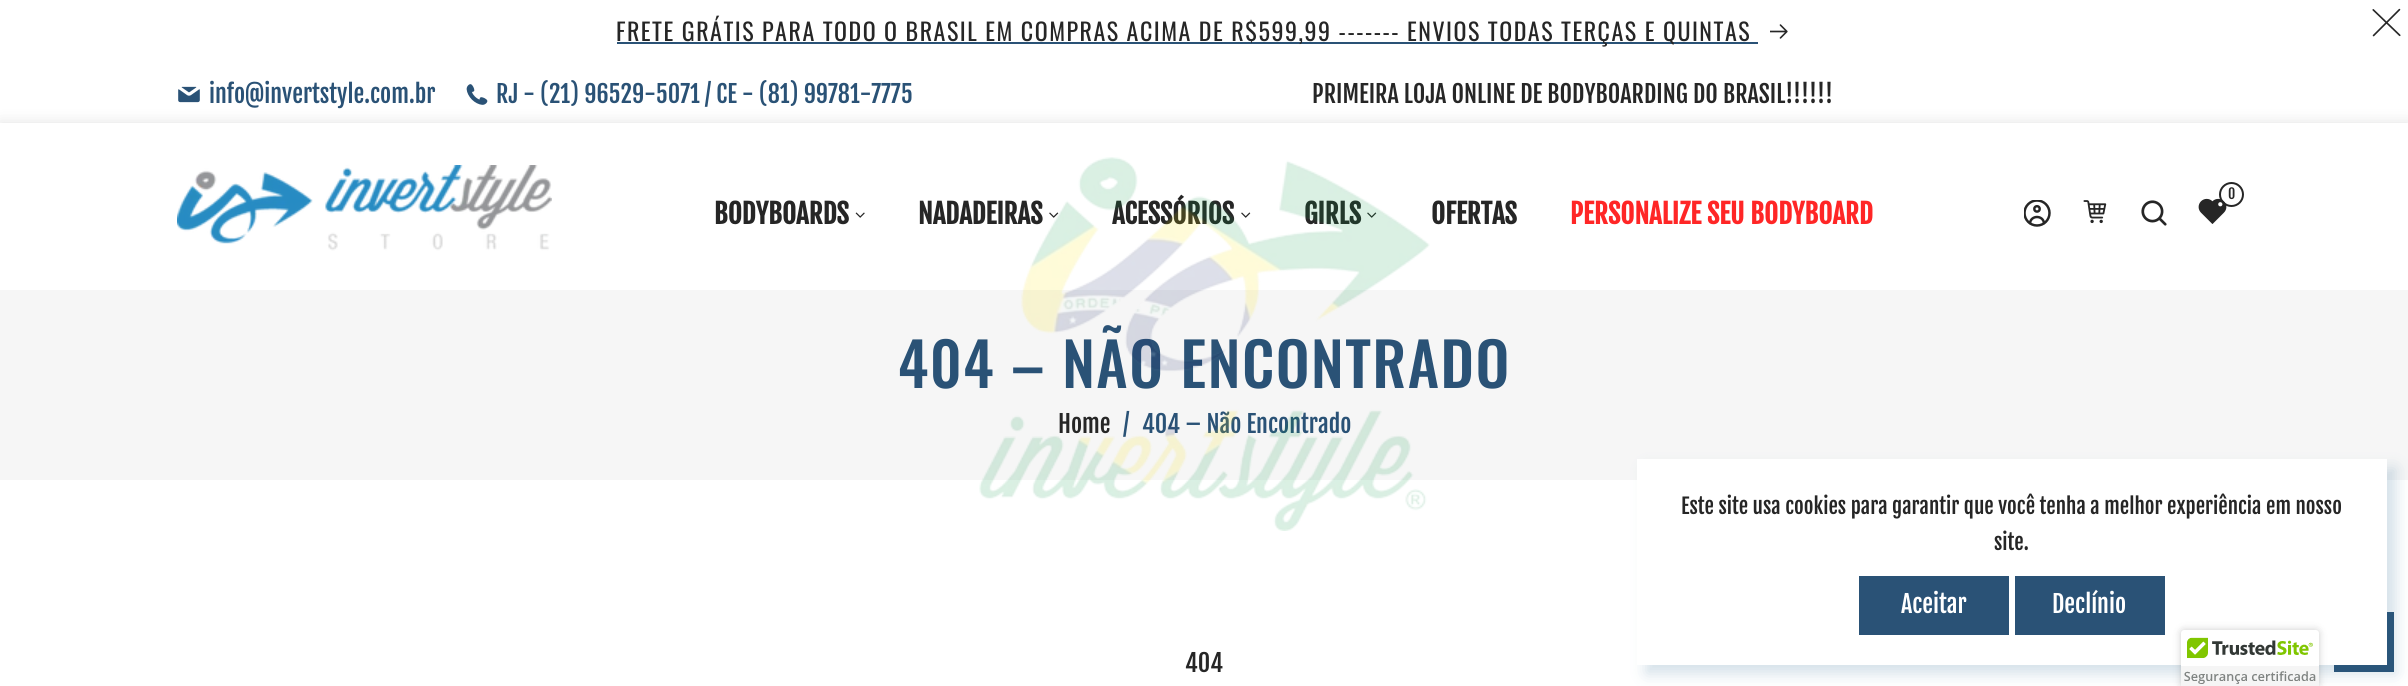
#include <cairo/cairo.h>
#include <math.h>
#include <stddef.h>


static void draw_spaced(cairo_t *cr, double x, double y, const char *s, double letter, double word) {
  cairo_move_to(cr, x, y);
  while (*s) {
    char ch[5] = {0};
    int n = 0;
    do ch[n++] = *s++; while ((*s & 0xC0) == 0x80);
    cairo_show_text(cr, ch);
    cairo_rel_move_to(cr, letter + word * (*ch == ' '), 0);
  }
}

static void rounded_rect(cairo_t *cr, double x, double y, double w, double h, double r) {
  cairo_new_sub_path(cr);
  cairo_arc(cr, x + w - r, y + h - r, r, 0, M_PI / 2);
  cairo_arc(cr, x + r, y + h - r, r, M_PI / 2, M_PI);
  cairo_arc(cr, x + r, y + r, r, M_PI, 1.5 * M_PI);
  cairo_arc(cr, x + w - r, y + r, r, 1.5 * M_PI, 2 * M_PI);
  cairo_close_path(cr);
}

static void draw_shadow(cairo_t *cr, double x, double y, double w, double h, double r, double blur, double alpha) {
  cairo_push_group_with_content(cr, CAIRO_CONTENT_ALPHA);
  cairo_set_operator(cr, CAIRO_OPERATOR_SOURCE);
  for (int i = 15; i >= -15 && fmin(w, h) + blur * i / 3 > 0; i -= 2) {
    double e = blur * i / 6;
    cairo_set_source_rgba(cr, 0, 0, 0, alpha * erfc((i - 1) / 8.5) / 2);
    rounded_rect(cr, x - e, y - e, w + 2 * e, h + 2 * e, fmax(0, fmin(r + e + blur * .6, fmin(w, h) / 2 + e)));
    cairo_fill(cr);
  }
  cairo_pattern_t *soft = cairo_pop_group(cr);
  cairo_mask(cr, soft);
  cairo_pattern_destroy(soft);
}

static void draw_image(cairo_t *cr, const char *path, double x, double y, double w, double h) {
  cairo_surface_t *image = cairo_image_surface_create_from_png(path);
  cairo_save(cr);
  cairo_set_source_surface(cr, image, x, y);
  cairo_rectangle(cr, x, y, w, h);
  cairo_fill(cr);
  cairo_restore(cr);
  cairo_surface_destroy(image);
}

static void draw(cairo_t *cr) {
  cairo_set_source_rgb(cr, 1, 1, 1);
  cairo_paint(cr);
  cairo_set_source_rgb(cr, 42 / 255.0, 82 / 255.0, 118 / 255.0);
  cairo_rectangle(cr, 617, 42, 1141, 2);
  cairo_fill(cr);
  draw_image(cr, "images/1.png", 1770, 24, 18, 15);
  draw_image(cr, "images/2.png", 2372, 8, 29, 29);
  draw_image(cr, "images/3.png", 178, 86, 22, 17);
  draw_image(cr, "images/4.png", 466, 84, 22, 21);
  cairo_set_source_rgb(cr, 60 / 255.0, 60 / 255.0, 60 / 255.0);
  draw_shadow(cr, 0, 123, 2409, 167, 0, 7.5, 0.15);
  cairo_set_source_rgb(cr, 1, 1, 1);
  cairo_rectangle(cr, 0, 123, 2408, 167);
  cairo_fill(cr);
  draw_image(cr, "images/6.png", 177, 165, 375, 86);
  draw_image(cr, "images/7.png", 2198, 198, 29, 26);
  cairo_arc(cr, 2231.5, 194.5, 11.5, 0, 2 * M_PI);
  cairo_set_source_rgb(cr, 38 / 255.0, 38 / 255.0, 38 / 255.0);
  cairo_stroke(cr);
  cairo_save(cr);
  cairo_rectangle(cr, 2024, 200, 27, 27);
  cairo_clip(cr);
  cairo_arc(cr, 2037, 213, 12.5, 0, 2 * M_PI);
  cairo_set_line_width(cr, 2.5);
  cairo_stroke(cr);
  cairo_restore(cr);
  cairo_arc(cr, 2037, 208.9, 2.7, 0, 2 * M_PI);
  cairo_set_line_width(cr, 2.5);
  cairo_stroke(cr);
  cairo_new_path(cr);
  cairo_move_to(cr, 2030, 223);
  cairo_curve_to(cr, 2031, 215, 2043, 215, 2044, 223);
  cairo_set_line_cap(cr, CAIRO_LINE_CAP_ROUND);
  cairo_set_line_join(cr, CAIRO_LINE_JOIN_ROUND);
  cairo_stroke(cr);
  draw_image(cr, "images/8.png", 2083, 200, 24, 24);
  draw_image(cr, "images/9.png", 2141, 200, 26, 26);
  draw_image(cr, "images/10.png", 855, 212, 10, 6);
  draw_image(cr, "images/11.png", 1049, 212, 10, 6);
  draw_image(cr, "images/11.png", 1241, 212, 10, 6);
  draw_image(cr, "images/11.png", 1367, 212, 10, 6);
  cairo_set_source_rgba(cr, 246 / 255.0, 246 / 255.0, 246 / 255.0, 0.99);
  cairo_rectangle(cr, 0, 290, 2408, 190);
  cairo_fill(cr);
  cairo_set_source_rgb(cr, 42 / 255.0, 82 / 255.0, 118 / 255.0);
  cairo_rectangle(cr, 2334, 612, 60, 60);
  cairo_fill(cr);
  cairo_set_source_rgb(cr, 39 / 255.0, 103 / 255.0, 145 / 255.0);
  draw_shadow(cr, 1646, 468, 750, 206, 0, 7.5, 0.2);
  cairo_set_source_rgb(cr, 1, 1, 1);
  cairo_rectangle(cr, 1637, 459, 750, 206);
  cairo_fill(cr);
  cairo_set_source_rgb(cr, 42 / 255.0, 82 / 255.0, 118 / 255.0);
  cairo_rectangle(cr, 1859, 576, 150, 59);
  cairo_fill(cr);
  cairo_rectangle(cr, 2015, 576, 150, 59);
  cairo_fill(cr);
  cairo_set_source_rgb(cr, 0, 0, 0);
  draw_shadow(cr, 2181, 630, 138, 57, 3, 4, 0.2);
  cairo_set_source_rgb(cr, 1, 1, 1);
  cairo_new_path(cr);
  cairo_move_to(cr, 2184, 630);
  cairo_line_to(cr, 2316, 630);
  cairo_curve_to(cr, 2317.5, 630, 2319, 631.5, 2319, 633);
  cairo_line_to(cr, 2319, 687);
  cairo_line_to(cr, 2181, 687);
  cairo_line_to(cr, 2181, 633);
  cairo_curve_to(cr, 2181, 631.5, 2182.5, 630, 2184, 630);
  cairo_close_path(cr);
  cairo_fill(cr);
  draw_image(cr, "images/12.png", 2181, 637, 138, 49);
  cairo_select_font_face(cr, "Oswald", CAIRO_FONT_SLANT_NORMAL, CAIRO_FONT_WEIGHT_NORMAL);
  cairo_set_font_size(cr, 24);
  cairo_set_source_rgb(cr, 38 / 255.0, 38 / 255.0, 38 / 255.0);
  draw_spaced(cr, 616, 41, "FRETE GRÁTIS PARA TODO O BRASIL EM COMPRAS ACIMA DE R$599,99 ------- ENVIOS TODAS TERÇAS E QUINTAS", 1.5, 0);
  cairo_select_font_face(cr, "Fjalla One", CAIRO_FONT_SLANT_NORMAL, CAIRO_FONT_WEIGHT_NORMAL);
  cairo_set_source_rgb(cr, 42 / 255.0, 82 / 255.0, 118 / 255.0);
  cairo_move_to(cr, 209, 103);
  cairo_show_text(cr, "info@invertstyle.com.br");
  cairo_move_to(cr, 496, 103);
  cairo_show_text(cr, "RJ - (21) 96529-5071 / CE - (81) 99781-7775");
  cairo_set_source_rgb(cr, 38 / 255.0, 38 / 255.0, 38 / 255.0);
  cairo_move_to(cr, 1312, 103);
  cairo_show_text(cr, "PRIMEIRA LOJA ONLINE DE BODYBOARDING DO BRASIL!!!!!!");
  cairo_set_font_size(cr, 14);
  cairo_move_to(cr, 2228, 199);
  cairo_show_text(cr, "0");
  cairo_select_font_face(cr, "Fjalla One", CAIRO_FONT_SLANT_NORMAL, CAIRO_FONT_WEIGHT_BOLD);
  cairo_set_font_size(cr, 27);
  cairo_move_to(cr, 714, 224);
  cairo_show_text(cr, "BODYBOARDS");
  cairo_move_to(cr, 918, 224);
  cairo_show_text(cr, "NADADEIRAS");
  cairo_move_to(cr, 1112, 224);
  cairo_show_text(cr, "ACESSÓRIOS");
  cairo_move_to(cr, 1304, 224);
  cairo_show_text(cr, "GIRLS");
  cairo_move_to(cr, 1431, 224);
  cairo_show_text(cr, "OFERTAS");
  cairo_set_source_rgb(cr, 1, 38 / 255.0, 38 / 255.0);
  cairo_move_to(cr, 1570, 224);
  cairo_show_text(cr, "PERSONALIZE SEU BODYBOARD");
  cairo_select_font_face(cr, "Oswald Medium", CAIRO_FONT_SLANT_NORMAL, CAIRO_FONT_WEIGHT_NORMAL);
  cairo_set_font_size(cr, 60);
  cairo_set_source_rgb(cr, 42 / 255.0, 82 / 255.0, 118 / 255.0);
  draw_spaced(cr, 898, 388, "404 – NÃO ENCONTRADO", 1.5, 0);
  cairo_select_font_face(cr, "Fjalla One", CAIRO_FONT_SLANT_NORMAL, CAIRO_FONT_WEIGHT_NORMAL);
  cairo_set_font_size(cr, 24);
  cairo_set_source_rgb(cr, 38 / 255.0, 38 / 255.0, 38 / 255.0);
  cairo_move_to(cr, 1058, 433);
  cairo_show_text(cr, "Home");
  cairo_set_source_rgb(cr, 42 / 255.0, 82 / 255.0, 118 / 255.0);
  cairo_move_to(cr, 1123, 433);
  cairo_show_text(cr, "/");
  cairo_move_to(cr, 1142, 433);
  cairo_show_text(cr, "404 – Não Encontrado");
  draw_image(cr, "images/5.png", 979, 157, 451, 374);
  cairo_set_font_size(cr, 21);
  cairo_set_source_rgb(cr, 38 / 255.0, 38 / 255.0, 38 / 255.0);
  cairo_move_to(cr, 1681, 514);
  cairo_show_text(cr, "Este site usa cookies para garantir que você tenha a melhor experiência em nosso");
  cairo_move_to(cr, 1994, 550);
  cairo_show_text(cr, "site.");
  cairo_set_font_size(cr, 24);
  cairo_set_source_rgb(cr, 1, 1, 1);
  cairo_move_to(cr, 1901, 613);
  cairo_show_text(cr, "Aceitar");
  cairo_move_to(cr, 2052, 613);
  cairo_show_text(cr, "Declínio");
  cairo_set_source_rgb(cr, 38 / 255.0, 38 / 255.0, 38 / 255.0);
  cairo_move_to(cr, 1185, 672);
  cairo_show_text(cr, "404");
}

int main(void) {
  cairo_surface_t *surface = cairo_image_surface_create(CAIRO_FORMAT_RGB24, 2408, 686);
  cairo_t *cr = cairo_create(surface);
  cairo_font_options_t *options = cairo_font_options_create();
  cairo_font_options_set_hint_metrics(options, CAIRO_HINT_METRICS_OFF);
  cairo_font_options_set_hint_style(options, CAIRO_HINT_STYLE_NONE);
  cairo_set_font_options(cr, options);
  cairo_set_miter_limit(cr, 4);
  draw(cr);
  cairo_surface_write_to_png(surface, "out.png");
  cairo_font_options_destroy(options);
  cairo_destroy(cr);
  cairo_surface_destroy(surface);
  return 0;
}
